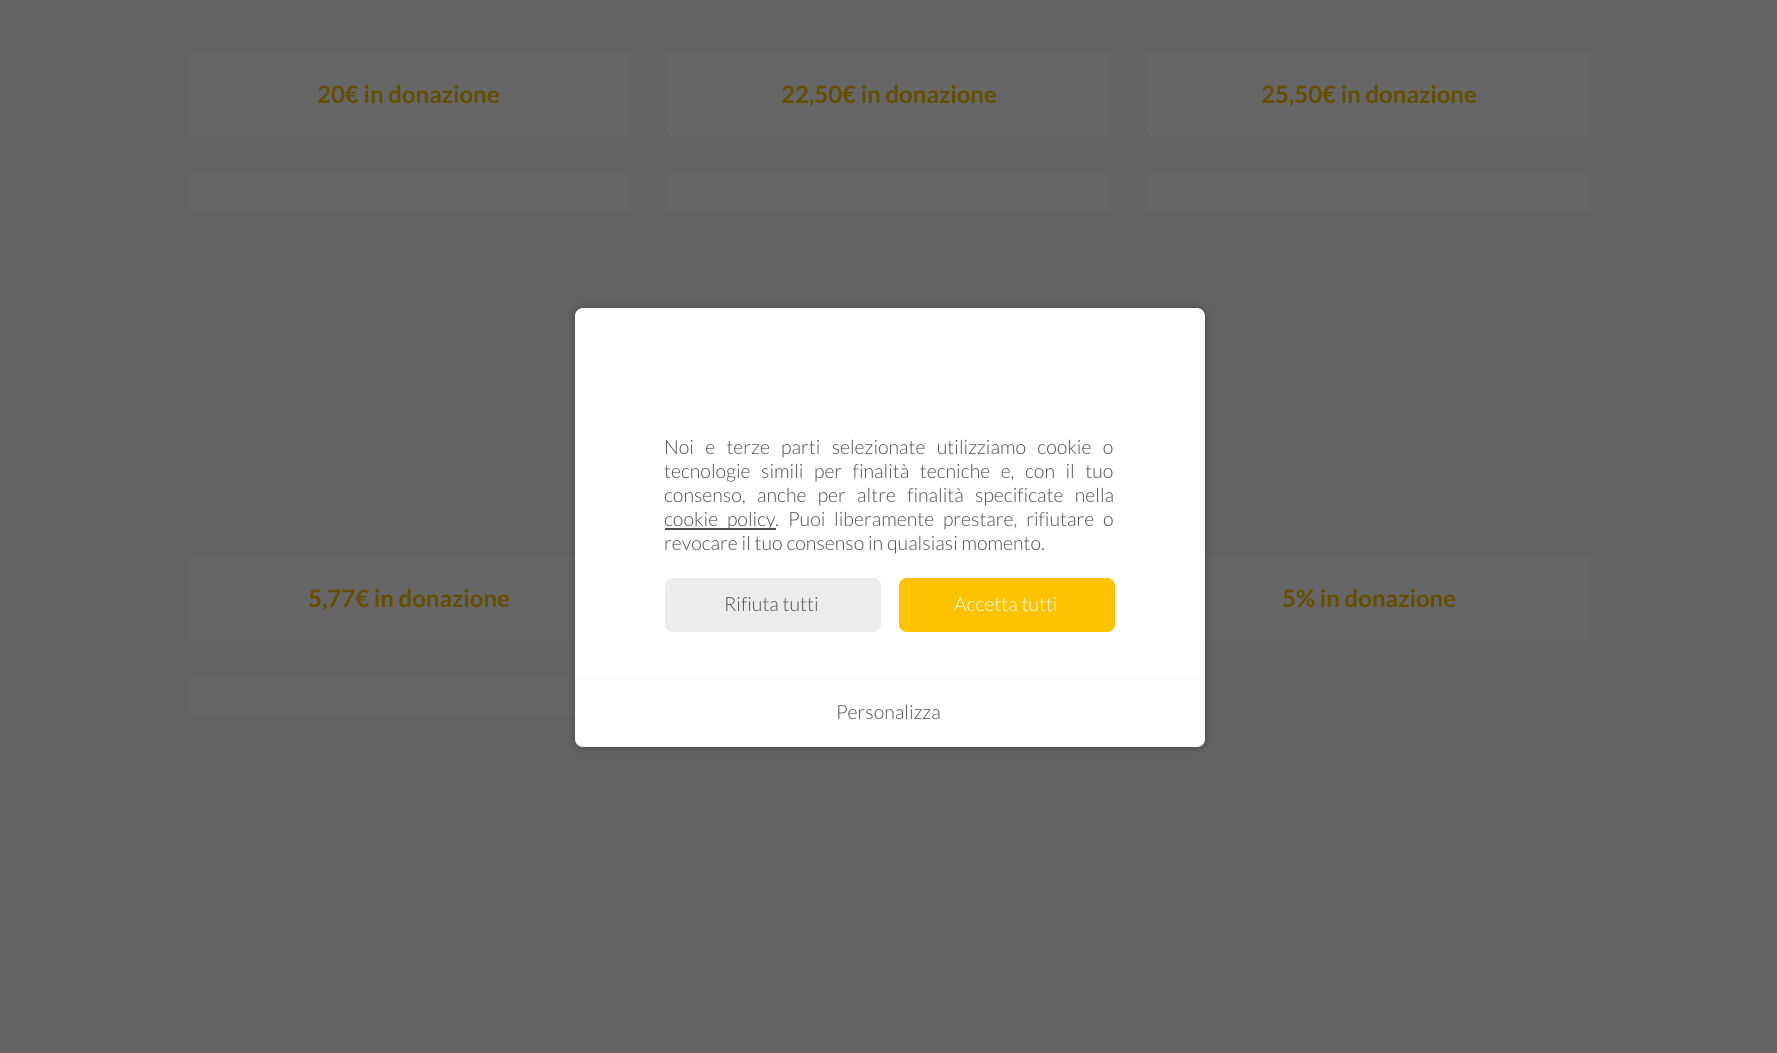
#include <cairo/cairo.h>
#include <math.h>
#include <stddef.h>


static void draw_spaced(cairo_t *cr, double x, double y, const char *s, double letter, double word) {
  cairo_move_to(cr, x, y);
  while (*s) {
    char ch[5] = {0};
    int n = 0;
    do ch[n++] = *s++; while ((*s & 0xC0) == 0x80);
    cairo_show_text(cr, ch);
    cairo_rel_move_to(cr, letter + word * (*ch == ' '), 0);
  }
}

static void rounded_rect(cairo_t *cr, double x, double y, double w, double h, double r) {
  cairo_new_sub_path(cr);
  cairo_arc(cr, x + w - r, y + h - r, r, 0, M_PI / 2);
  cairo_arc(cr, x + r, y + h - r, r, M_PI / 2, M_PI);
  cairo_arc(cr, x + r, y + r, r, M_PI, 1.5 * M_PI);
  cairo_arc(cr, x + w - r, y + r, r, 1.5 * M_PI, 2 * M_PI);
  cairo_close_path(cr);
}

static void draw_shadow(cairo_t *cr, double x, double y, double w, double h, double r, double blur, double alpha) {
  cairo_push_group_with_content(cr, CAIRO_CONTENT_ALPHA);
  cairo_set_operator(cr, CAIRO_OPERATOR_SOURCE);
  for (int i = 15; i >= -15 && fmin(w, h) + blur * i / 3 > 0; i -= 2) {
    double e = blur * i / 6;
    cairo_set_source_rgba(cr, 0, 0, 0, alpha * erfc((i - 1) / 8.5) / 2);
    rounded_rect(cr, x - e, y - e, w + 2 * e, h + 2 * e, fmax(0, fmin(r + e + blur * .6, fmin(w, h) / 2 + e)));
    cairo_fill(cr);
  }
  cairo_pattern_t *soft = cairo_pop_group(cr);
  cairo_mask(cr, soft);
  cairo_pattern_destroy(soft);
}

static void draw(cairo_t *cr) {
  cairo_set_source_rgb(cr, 99 / 255.0, 99 / 255.0, 100 / 255.0);
  cairo_paint(cr);
  cairo_set_source_rgb(cr, 102 / 255.0, 102 / 255.0, 102 / 255.0);
  cairo_new_path(cr);
  cairo_move_to(cr, 188, 53);
  cairo_line_to(cr, 630, 53);
  cairo_line_to(cr, 630, 128);
  cairo_curve_to(cr, 630, 133, 626, 137, 621, 137);
  cairo_line_to(cr, 197, 137);
  cairo_curve_to(cr, 192, 137, 188, 133, 188, 128);
  cairo_close_path(cr);
  cairo_fill(cr);
  cairo_new_path(cr);
  cairo_move_to(cr, 666, 53);
  cairo_line_to(cr, 1110, 53);
  cairo_line_to(cr, 1110, 128);
  cairo_curve_to(cr, 1110, 133, 1106, 137, 1101, 137);
  cairo_line_to(cr, 675, 137);
  cairo_curve_to(cr, 670, 137, 666, 133, 666, 128);
  cairo_close_path(cr);
  cairo_fill(cr);
  cairo_new_path(cr);
  cairo_move_to(cr, 1146, 53);
  cairo_line_to(cr, 1590, 53);
  cairo_line_to(cr, 1590, 128);
  cairo_curve_to(cr, 1590, 133, 1586, 137, 1581, 137);
  cairo_line_to(cr, 1155, 137);
  cairo_curve_to(cr, 1150, 137, 1146, 133, 1146, 128);
  cairo_close_path(cr);
  cairo_fill(cr);
  cairo_new_path(cr);
  cairo_move_to(cr, 675, 173);
  cairo_line_to(cr, 1101, 173);
  cairo_curve_to(cr, 1106, 173, 1110, 177, 1110, 182);
  cairo_line_to(cr, 1110, 212);
  cairo_line_to(cr, 666, 212);
  cairo_line_to(cr, 666, 182);
  cairo_curve_to(cr, 666, 177, 670, 173, 675, 173);
  cairo_close_path(cr);
  cairo_fill(cr);
  cairo_new_path(cr);
  cairo_move_to(cr, 197, 173);
  cairo_line_to(cr, 621, 173);
  cairo_curve_to(cr, 626, 173, 630, 177, 630, 182);
  cairo_line_to(cr, 630, 212);
  cairo_line_to(cr, 188, 212);
  cairo_line_to(cr, 188, 182);
  cairo_curve_to(cr, 188, 177, 192, 173, 197, 173);
  cairo_close_path(cr);
  cairo_fill(cr);
  cairo_new_path(cr);
  cairo_move_to(cr, 188, 557);
  cairo_line_to(cr, 630, 557);
  cairo_line_to(cr, 630, 632);
  cairo_curve_to(cr, 630, 637, 626, 641, 621, 641);
  cairo_line_to(cr, 197, 641);
  cairo_curve_to(cr, 192, 641, 188, 637, 188, 632);
  cairo_close_path(cr);
  cairo_fill(cr);
  cairo_new_path(cr);
  cairo_move_to(cr, 1155, 173);
  cairo_line_to(cr, 1581, 173);
  cairo_curve_to(cr, 1586, 173, 1590, 177, 1590, 182);
  cairo_line_to(cr, 1590, 212);
  cairo_line_to(cr, 1146, 212);
  cairo_line_to(cr, 1146, 182);
  cairo_curve_to(cr, 1146, 177, 1150, 173, 1155, 173);
  cairo_close_path(cr);
  cairo_fill(cr);
  cairo_new_path(cr);
  cairo_move_to(cr, 1146, 557);
  cairo_line_to(cr, 1590, 557);
  cairo_line_to(cr, 1590, 632);
  cairo_curve_to(cr, 1590, 637, 1586, 641, 1581, 641);
  cairo_line_to(cr, 1155, 641);
  cairo_curve_to(cr, 1150, 641, 1146, 637, 1146, 632);
  cairo_close_path(cr);
  cairo_fill(cr);
  cairo_new_path(cr);
  cairo_move_to(cr, 197, 677);
  cairo_line_to(cr, 621, 677);
  cairo_curve_to(cr, 626, 677, 630, 681, 630, 686);
  cairo_line_to(cr, 630, 716);
  cairo_line_to(cr, 188, 716);
  cairo_line_to(cr, 188, 686);
  cairo_curve_to(cr, 188, 681, 192, 677, 197, 677);
  cairo_close_path(cr);
  cairo_fill(cr);
  cairo_set_source_rgb(cr, 0, 0, 0);
  draw_shadow(cr, 575, 308, 630, 439, 8, 4, 0.3);
  cairo_set_source_rgb(cr, 1, 1, 1);
  rounded_rect(cr, 575, 308, 630, 439, 8);
  cairo_fill(cr);
  cairo_set_source_rgb(cr, 76 / 255.0, 76 / 255.0, 76 / 255.0);
  cairo_rectangle(cr, 665, 528, 111, 2);
  cairo_fill(cr);
  cairo_set_source_rgb(cr, 236 / 255.0, 236 / 255.0, 236 / 255.0);
  rounded_rect(cr, 665, 578, 216, 54, 8);
  cairo_fill(cr);
  cairo_set_source_rgb(cr, 253 / 255.0, 195 / 255.0, 0);
  rounded_rect(cr, 899, 578, 216, 54, 8);
  cairo_fill(cr);
  cairo_set_source_rgb(cr, 250 / 255.0, 250 / 255.0, 250 / 255.0);
  cairo_rectangle(cr, 575, 677, 630, 2);
  cairo_fill(cr);
  cairo_select_font_face(cr, "Lato", CAIRO_FONT_SLANT_NORMAL, CAIRO_FONT_WEIGHT_BOLD);
  cairo_set_font_size(cr, 24);
  cairo_set_source_rgb(cr, 101 / 255.0, 78 / 255.0, 0);
  cairo_move_to(cr, 317, 103);
  cairo_show_text(cr, "20€ in donazione");
  cairo_move_to(cr, 781, 103);
  cairo_show_text(cr, "22,50€ in donazione");
  cairo_move_to(cr, 1261, 103);
  cairo_show_text(cr, "25,50€ in donazione");
  cairo_move_to(cr, 308, 607);
  cairo_show_text(cr, "5,77€ in donazione");
  cairo_move_to(cr, 1282, 607);
  cairo_show_text(cr, "5% in donazione");
  cairo_select_font_face(cr, "Lato Light", CAIRO_FONT_SLANT_NORMAL, CAIRO_FONT_WEIGHT_NORMAL);
  cairo_set_font_size(cr, 19.5);
  cairo_set_source_rgb(cr, 76 / 255.0, 76 / 255.0, 76 / 255.0);
  draw_spaced(cr, 664, 454, "Noi e terze parti selezionate utilizziamo cookie o", 0, 7.5);
  draw_spaced(cr, 664, 478, "tecnologie simili per finalità tecniche e, con il tuo", 0, 6.75);
  cairo_move_to(cr, 664, 502);
  cairo_show_text(cr, "consenso,");
  draw_spaced(cr, 757, 502, "anche per altre finalità specificate nella", 0, 7.5);
  draw_spaced(cr, 664, 526, "cookie policy", 0, 5);
  cairo_move_to(cr, 775, 526);
  cairo_show_text(cr, ".");
  draw_spaced(cr, 788, 526, "Puoi liberamente prestare, rifiutare o", 0, 5);
  cairo_move_to(cr, 664, 550);
  cairo_show_text(cr, "revocare il tuo consenso in qualsiasi momento.");
  cairo_move_to(cr, 724, 611);
  cairo_show_text(cr, "Rifiuta tutti");
  cairo_set_source_rgb(cr, 1, 1, 1);
  cairo_move_to(cr, 954, 611);
  cairo_show_text(cr, "Accetta tutti");
  cairo_set_source_rgb(cr, 76 / 255.0, 76 / 255.0, 76 / 255.0);
  cairo_move_to(cr, 836, 719);
  cairo_show_text(cr, "Personalizza");
}

int main(void) {
  cairo_surface_t *surface = cairo_image_surface_create(CAIRO_FORMAT_RGB24, 1777, 1053);
  cairo_t *cr = cairo_create(surface);
  cairo_font_options_t *options = cairo_font_options_create();
  cairo_font_options_set_hint_metrics(options, CAIRO_HINT_METRICS_OFF);
  cairo_font_options_set_hint_style(options, CAIRO_HINT_STYLE_NONE);
  cairo_set_font_options(cr, options);
  cairo_set_miter_limit(cr, 4);
  draw(cr);
  cairo_surface_write_to_png(surface, "out.png");
  cairo_font_options_destroy(options);
  cairo_destroy(cr);
  cairo_surface_destroy(surface);
  return 0;
}
